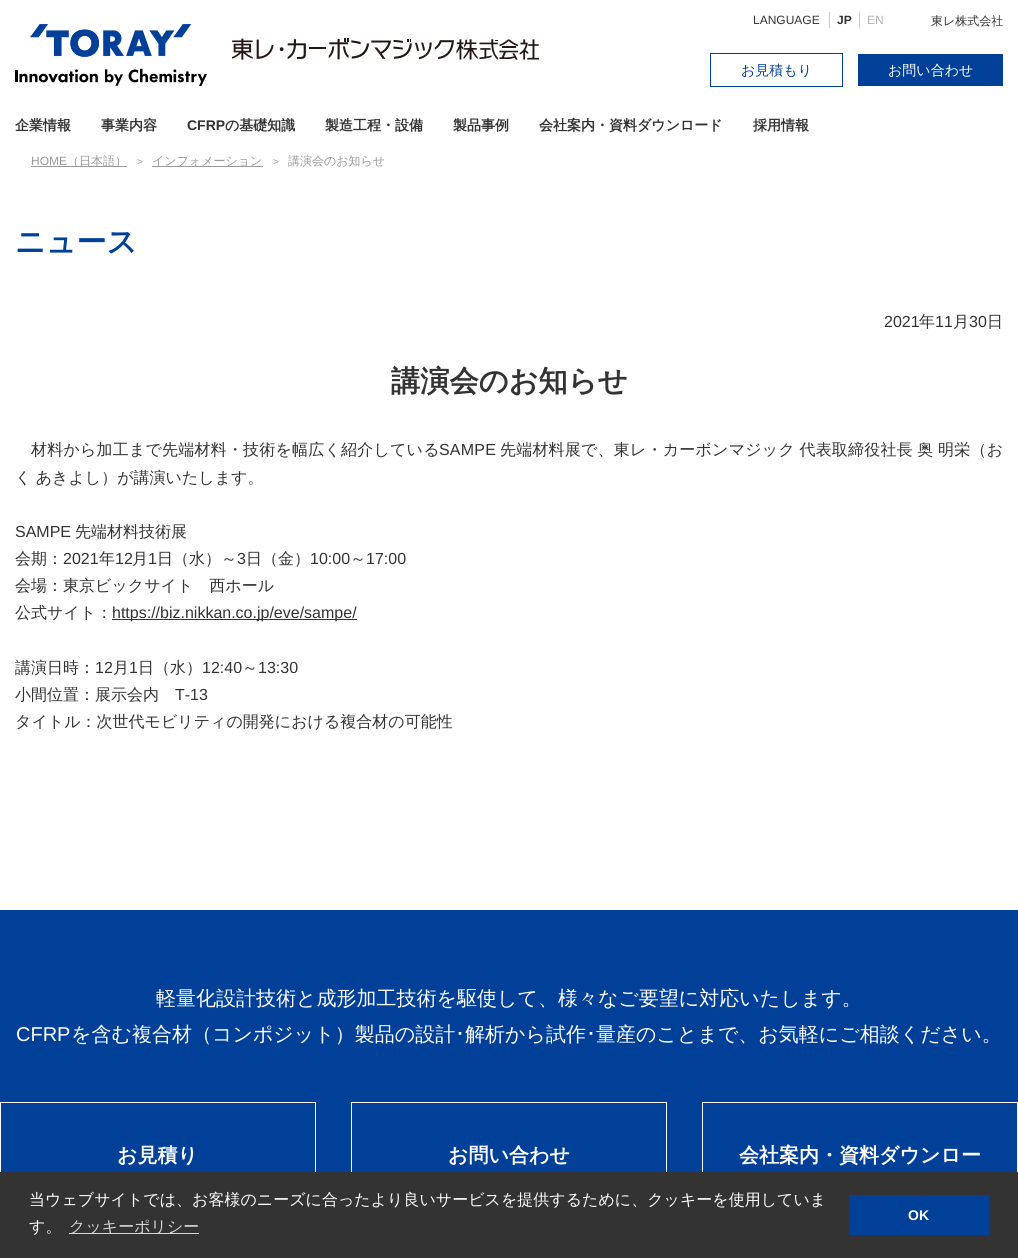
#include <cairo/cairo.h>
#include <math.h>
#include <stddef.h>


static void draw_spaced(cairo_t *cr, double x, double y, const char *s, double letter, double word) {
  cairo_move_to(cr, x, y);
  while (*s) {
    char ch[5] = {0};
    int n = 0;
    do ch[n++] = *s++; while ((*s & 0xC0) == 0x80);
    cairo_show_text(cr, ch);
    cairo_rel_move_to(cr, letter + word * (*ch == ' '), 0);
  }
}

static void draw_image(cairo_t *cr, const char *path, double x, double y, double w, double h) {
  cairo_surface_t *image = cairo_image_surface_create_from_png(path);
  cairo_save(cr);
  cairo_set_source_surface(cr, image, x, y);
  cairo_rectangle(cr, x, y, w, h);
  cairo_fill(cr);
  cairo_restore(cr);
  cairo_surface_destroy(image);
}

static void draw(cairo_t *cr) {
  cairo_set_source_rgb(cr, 1, 1, 1);
  cairo_paint(cr);
  draw_image(cr, "images/1.png", 15, 24, 192, 62);
  draw_image(cr, "images/2.png", 232, 38, 307, 22);
  cairo_set_source_rgb(cr, 204 / 255.0, 204 / 255.0, 204 / 255.0);
  cairo_rectangle(cr, 829, 12, 1, 16);
  cairo_fill(cr);
  cairo_rectangle(cr, 859, 12, 1, 16);
  cairo_fill(cr);
  cairo_rectangle(cr, 710.5, 53.5, 132, 33);
  cairo_set_source_rgb(cr, 1 / 255.0, 64 / 255.0, 153 / 255.0);
  cairo_set_line_width(cr, 1);
  cairo_stroke(cr);
  cairo_rectangle(cr, 858, 54, 145, 32);
  cairo_fill(cr);
  cairo_set_source_rgb(cr, 153 / 255.0, 153 / 255.0, 153 / 255.0);
  cairo_rectangle(cr, 31, 166, 96, 1);
  cairo_fill(cr);
  cairo_rectangle(cr, 152, 166, 111, 1);
  cairo_fill(cr);
  cairo_set_source_rgb(cr, 51 / 255.0, 51 / 255.0, 51 / 255.0);
  cairo_rectangle(cr, 112, 619, 245, 1);
  cairo_fill(cr);
  cairo_set_source_rgb(cr, 1 / 255.0, 64 / 255.0, 153 / 255.0);
  cairo_rectangle(cr, 0, 910, 1018, 262);
  cairo_fill(cr);
  cairo_rectangle(cr, 0.5, 1102.5, 315, 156);
  cairo_set_source_rgb(cr, 1, 1, 1);
  cairo_stroke(cr);
  cairo_rectangle(cr, 351.5, 1102.5, 315, 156);
  cairo_stroke(cr);
  cairo_rectangle(cr, 702.5, 1102.5, 315, 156);
  cairo_stroke(cr);
  cairo_set_source_rgb(cr, 51 / 255.0, 51 / 255.0, 51 / 255.0);
  cairo_rectangle(cr, 0, 1172, 1018, 86);
  cairo_fill(cr);
  cairo_set_source_rgb(cr, 214 / 255.0, 214 / 255.0, 214 / 255.0);
  cairo_rectangle(cr, 69, 1233, 130, 1);
  cairo_fill(cr);
  cairo_set_source_rgb(cr, 1 / 255.0, 64 / 255.0, 153 / 255.0);
  cairo_rectangle(cr, 849, 1195, 140, 40);
  cairo_fill(cr);
  cairo_select_font_face(cr, "Liberation Sans", CAIRO_FONT_SLANT_NORMAL, CAIRO_FONT_WEIGHT_NORMAL);
  cairo_set_font_size(cr, 12);
  cairo_set_source_rgb(cr, 51 / 255.0, 51 / 255.0, 51 / 255.0);
  cairo_move_to(cr, 753, 24);
  cairo_show_text(cr, "LANGUAGE");
  cairo_select_font_face(cr, "Liberation Sans", CAIRO_FONT_SLANT_NORMAL, CAIRO_FONT_WEIGHT_BOLD);
  cairo_move_to(cr, 837, 24);
  cairo_show_text(cr, "JP");
  cairo_select_font_face(cr, "Liberation Sans", CAIRO_FONT_SLANT_NORMAL, CAIRO_FONT_WEIGHT_NORMAL);
  cairo_set_source_rgb(cr, 178 / 255.0, 178 / 255.0, 178 / 255.0);
  cairo_move_to(cr, 867, 24);
  cairo_show_text(cr, "EN");
  cairo_select_font_face(cr, "WenQuanYi Zen Hei Medium", CAIRO_FONT_SLANT_NORMAL, CAIRO_FONT_WEIGHT_NORMAL);
  cairo_set_source_rgb(cr, 51 / 255.0, 51 / 255.0, 51 / 255.0);
  cairo_move_to(cr, 931, 25);
  cairo_show_text(cr, "東レ株式会社");
  cairo_set_font_size(cr, 14);
  cairo_set_source_rgb(cr, 1 / 255.0, 64 / 255.0, 153 / 255.0);
  cairo_move_to(cr, 741, 75);
  cairo_show_text(cr, "お見積もり");
  cairo_set_source_rgb(cr, 1, 1, 1);
  cairo_move_to(cr, 888, 75);
  cairo_show_text(cr, "お問い合わせ");
  cairo_select_font_face(cr, "WenQuanYi Zen Hei", CAIRO_FONT_SLANT_NORMAL, CAIRO_FONT_WEIGHT_BOLD);
  cairo_set_source_rgb(cr, 51 / 255.0, 51 / 255.0, 51 / 255.0);
  cairo_move_to(cr, 15, 130);
  cairo_show_text(cr, "企業情報");
  cairo_move_to(cr, 101, 130);
  cairo_show_text(cr, "事業内容");
  cairo_select_font_face(cr, "Liberation Sans", CAIRO_FONT_SLANT_NORMAL, CAIRO_FONT_WEIGHT_BOLD);
  cairo_move_to(cr, 187, 130);
  cairo_show_text(cr, "CFRP");
  cairo_select_font_face(cr, "WenQuanYi Zen Hei", CAIRO_FONT_SLANT_NORMAL, CAIRO_FONT_WEIGHT_BOLD);
  cairo_move_to(cr, 225, 130);
  cairo_show_text(cr, "の基礎知識");
  cairo_move_to(cr, 325, 130);
  cairo_show_text(cr, "製造工程・設備");
  cairo_move_to(cr, 453, 130);
  cairo_show_text(cr, "製品事例");
  cairo_move_to(cr, 539, 130);
  cairo_show_text(cr, "会社案内・資料ダウンロード");
  cairo_move_to(cr, 753, 130);
  cairo_show_text(cr, "採用情報");
  cairo_select_font_face(cr, "Liberation Sans", CAIRO_FONT_SLANT_NORMAL, CAIRO_FONT_WEIGHT_NORMAL);
  cairo_set_font_size(cr, 12);
  cairo_set_source_rgb(cr, 153 / 255.0, 153 / 255.0, 153 / 255.0);
  cairo_move_to(cr, 31, 165);
  cairo_show_text(cr, "HOME");
  cairo_select_font_face(cr, "WenQuanYi Zen Hei Medium", CAIRO_FONT_SLANT_NORMAL, CAIRO_FONT_WEIGHT_NORMAL);
  cairo_move_to(cr, 67, 165);
  cairo_show_text(cr, "（日本語）");
  cairo_select_font_face(cr, "Liberation Sans", CAIRO_FONT_SLANT_NORMAL, CAIRO_FONT_WEIGHT_NORMAL);
  cairo_set_font_size(cr, 10);
  cairo_move_to(cr, 137, 165);
  cairo_show_text(cr, ">");
  cairo_select_font_face(cr, "WenQuanYi Zen Hei Medium", CAIRO_FONT_SLANT_NORMAL, CAIRO_FONT_WEIGHT_NORMAL);
  cairo_set_font_size(cr, 12);
  cairo_move_to(cr, 152, 165);
  cairo_show_text(cr, "インフォメーション");
  cairo_select_font_face(cr, "Liberation Sans", CAIRO_FONT_SLANT_NORMAL, CAIRO_FONT_WEIGHT_NORMAL);
  cairo_set_font_size(cr, 10);
  cairo_move_to(cr, 273, 165);
  cairo_show_text(cr, ">");
  cairo_select_font_face(cr, "WenQuanYi Zen Hei Medium", CAIRO_FONT_SLANT_NORMAL, CAIRO_FONT_WEIGHT_NORMAL);
  cairo_set_font_size(cr, 12);
  cairo_move_to(cr, 288, 165);
  cairo_show_text(cr, "講演会のお知らせ");
  cairo_select_font_face(cr, "WenQuanYi Zen Hei", CAIRO_FONT_SLANT_NORMAL, CAIRO_FONT_WEIGHT_BOLD);
  cairo_set_font_size(cr, 30);
  cairo_set_source_rgb(cr, 1 / 255.0, 64 / 255.0, 153 / 255.0);
  cairo_move_to(cr, 15, 252);
  cairo_show_text(cr, "ニュース");
  cairo_select_font_face(cr, "Liberation Sans", CAIRO_FONT_SLANT_NORMAL, CAIRO_FONT_WEIGHT_NORMAL);
  cairo_set_font_size(cr, 16);
  cairo_set_source_rgb(cr, 51 / 255.0, 51 / 255.0, 51 / 255.0);
  cairo_move_to(cr, 884, 327);
  cairo_show_text(cr, "2021");
  cairo_select_font_face(cr, "WenQuanYi Zen Hei Medium", CAIRO_FONT_SLANT_NORMAL, CAIRO_FONT_WEIGHT_NORMAL);
  cairo_move_to(cr, 919, 327);
  cairo_show_text(cr, "年");
  cairo_select_font_face(cr, "Liberation Sans", CAIRO_FONT_SLANT_NORMAL, CAIRO_FONT_WEIGHT_NORMAL);
  cairo_move_to(cr, 935, 327);
  cairo_show_text(cr, "11");
  cairo_select_font_face(cr, "WenQuanYi Zen Hei Medium", CAIRO_FONT_SLANT_NORMAL, CAIRO_FONT_WEIGHT_NORMAL);
  cairo_move_to(cr, 953, 327);
  cairo_show_text(cr, "月");
  cairo_select_font_face(cr, "Liberation Sans", CAIRO_FONT_SLANT_NORMAL, CAIRO_FONT_WEIGHT_NORMAL);
  cairo_move_to(cr, 969, 327);
  cairo_show_text(cr, "30");
  cairo_select_font_face(cr, "WenQuanYi Zen Hei Medium", CAIRO_FONT_SLANT_NORMAL, CAIRO_FONT_WEIGHT_NORMAL);
  cairo_move_to(cr, 987, 327);
  cairo_show_text(cr, "日");
  cairo_select_font_face(cr, "WenQuanYi Zen Hei", CAIRO_FONT_SLANT_NORMAL, CAIRO_FONT_WEIGHT_BOLD);
  cairo_set_font_size(cr, 29.25);
  cairo_move_to(cr, 391, 391);
  cairo_show_text(cr, "講演会のお知らせ");
  cairo_select_font_face(cr, "WenQuanYi Zen Hei Medium", CAIRO_FONT_SLANT_NORMAL, CAIRO_FONT_WEIGHT_NORMAL);
  cairo_set_font_size(cr, 16);
  draw_spaced(cr, 31, 455, "材料から加工まで先端材料・技術を幅広く紹介している", 0.2, 0);
  cairo_select_font_face(cr, "Liberation Sans", CAIRO_FONT_SLANT_NORMAL, CAIRO_FONT_WEIGHT_NORMAL);
  draw_spaced(cr, 439, 455, "SAMPE", 0.2, 0);
  cairo_select_font_face(cr, "WenQuanYi Zen Hei Medium", CAIRO_FONT_SLANT_NORMAL, CAIRO_FONT_WEIGHT_NORMAL);
  draw_spaced(cr, 500, 455, "先端材料展で、東レ・カーボンマジック 代表取締役社長 奥 明栄（お", 0.2, -0.5);
  draw_spaced(cr, 15, 483, "く あきよし）が講演いたします。", 0, -0.5);
  cairo_select_font_face(cr, "Liberation Sans", CAIRO_FONT_SLANT_NORMAL, CAIRO_FONT_WEIGHT_NORMAL);
  cairo_move_to(cr, 15, 537);
  cairo_show_text(cr, "SAMPE");
  cairo_select_font_face(cr, "WenQuanYi Zen Hei Medium", CAIRO_FONT_SLANT_NORMAL, CAIRO_FONT_WEIGHT_NORMAL);
  cairo_move_to(cr, 75, 537);
  cairo_show_text(cr, "先端材料技術展");
  cairo_move_to(cr, 15, 564);
  cairo_show_text(cr, "会期：");
  cairo_select_font_face(cr, "Liberation Sans", CAIRO_FONT_SLANT_NORMAL, CAIRO_FONT_WEIGHT_NORMAL);
  cairo_move_to(cr, 63, 564);
  cairo_show_text(cr, "2021");
  cairo_select_font_face(cr, "WenQuanYi Zen Hei Medium", CAIRO_FONT_SLANT_NORMAL, CAIRO_FONT_WEIGHT_NORMAL);
  cairo_move_to(cr, 99, 564);
  cairo_show_text(cr, "年");
  cairo_select_font_face(cr, "Liberation Sans", CAIRO_FONT_SLANT_NORMAL, CAIRO_FONT_WEIGHT_NORMAL);
  cairo_move_to(cr, 115, 564);
  cairo_show_text(cr, "12");
  cairo_select_font_face(cr, "WenQuanYi Zen Hei Medium", CAIRO_FONT_SLANT_NORMAL, CAIRO_FONT_WEIGHT_NORMAL);
  cairo_move_to(cr, 132, 564);
  cairo_show_text(cr, "月");
  cairo_select_font_face(cr, "Liberation Sans", CAIRO_FONT_SLANT_NORMAL, CAIRO_FONT_WEIGHT_NORMAL);
  cairo_move_to(cr, 148, 564);
  cairo_show_text(cr, "1");
  cairo_select_font_face(cr, "WenQuanYi Zen Hei Medium", CAIRO_FONT_SLANT_NORMAL, CAIRO_FONT_WEIGHT_NORMAL);
  cairo_move_to(cr, 157, 564);
  cairo_show_text(cr, "日（水）～");
  cairo_select_font_face(cr, "Liberation Sans", CAIRO_FONT_SLANT_NORMAL, CAIRO_FONT_WEIGHT_NORMAL);
  cairo_move_to(cr, 237, 564);
  cairo_show_text(cr, "3");
  cairo_select_font_face(cr, "WenQuanYi Zen Hei Medium", CAIRO_FONT_SLANT_NORMAL, CAIRO_FONT_WEIGHT_NORMAL);
  cairo_move_to(cr, 246, 564);
  cairo_show_text(cr, "日（金）");
  cairo_select_font_face(cr, "Liberation Sans", CAIRO_FONT_SLANT_NORMAL, CAIRO_FONT_WEIGHT_NORMAL);
  cairo_move_to(cr, 310, 564);
  cairo_show_text(cr, "10:00");
  cairo_select_font_face(cr, "WenQuanYi Zen Hei Medium", CAIRO_FONT_SLANT_NORMAL, CAIRO_FONT_WEIGHT_NORMAL);
  cairo_move_to(cr, 350, 564);
  cairo_show_text(cr, "～");
  cairo_select_font_face(cr, "Liberation Sans", CAIRO_FONT_SLANT_NORMAL, CAIRO_FONT_WEIGHT_NORMAL);
  cairo_move_to(cr, 366, 564);
  cairo_show_text(cr, "17:00");
  cairo_select_font_face(cr, "WenQuanYi Zen Hei Medium", CAIRO_FONT_SLANT_NORMAL, CAIRO_FONT_WEIGHT_NORMAL);
  cairo_move_to(cr, 15, 591);
  cairo_show_text(cr, "会場：東京ビックサイト　西ホール");
  cairo_move_to(cr, 15, 618);
  cairo_show_text(cr, "公式サイト：");
  cairo_select_font_face(cr, "Liberation Sans", CAIRO_FONT_SLANT_NORMAL, CAIRO_FONT_WEIGHT_NORMAL);
  cairo_move_to(cr, 112, 618);
  cairo_show_text(cr, "https://biz.nikkan.co.jp/eve/sampe/");
  cairo_select_font_face(cr, "WenQuanYi Zen Hei Medium", CAIRO_FONT_SLANT_NORMAL, CAIRO_FONT_WEIGHT_NORMAL);
  cairo_move_to(cr, 15, 673);
  cairo_show_text(cr, "講演日時：");
  cairo_select_font_face(cr, "Liberation Sans", CAIRO_FONT_SLANT_NORMAL, CAIRO_FONT_WEIGHT_NORMAL);
  cairo_move_to(cr, 95, 673);
  cairo_show_text(cr, "12");
  cairo_select_font_face(cr, "WenQuanYi Zen Hei Medium", CAIRO_FONT_SLANT_NORMAL, CAIRO_FONT_WEIGHT_NORMAL);
  cairo_move_to(cr, 113, 673);
  cairo_show_text(cr, "月");
  cairo_select_font_face(cr, "Liberation Sans", CAIRO_FONT_SLANT_NORMAL, CAIRO_FONT_WEIGHT_NORMAL);
  cairo_move_to(cr, 129, 673);
  cairo_show_text(cr, "1");
  cairo_select_font_face(cr, "WenQuanYi Zen Hei Medium", CAIRO_FONT_SLANT_NORMAL, CAIRO_FONT_WEIGHT_NORMAL);
  cairo_move_to(cr, 138, 673);
  cairo_show_text(cr, "日（水）");
  cairo_select_font_face(cr, "Liberation Sans", CAIRO_FONT_SLANT_NORMAL, CAIRO_FONT_WEIGHT_NORMAL);
  cairo_move_to(cr, 202, 673);
  cairo_show_text(cr, "12:40");
  cairo_select_font_face(cr, "WenQuanYi Zen Hei Medium", CAIRO_FONT_SLANT_NORMAL, CAIRO_FONT_WEIGHT_NORMAL);
  cairo_move_to(cr, 242, 673);
  cairo_show_text(cr, "～");
  cairo_select_font_face(cr, "Liberation Sans", CAIRO_FONT_SLANT_NORMAL, CAIRO_FONT_WEIGHT_NORMAL);
  cairo_move_to(cr, 258, 673);
  cairo_show_text(cr, "13:30");
  cairo_select_font_face(cr, "WenQuanYi Zen Hei Medium", CAIRO_FONT_SLANT_NORMAL, CAIRO_FONT_WEIGHT_NORMAL);
  cairo_move_to(cr, 15, 700);
  cairo_show_text(cr, "小間位置：展示会内");
  cairo_select_font_face(cr, "Liberation Sans", CAIRO_FONT_SLANT_NORMAL, CAIRO_FONT_WEIGHT_NORMAL);
  cairo_move_to(cr, 175, 700);
  cairo_show_text(cr, "T-13");
  cairo_select_font_face(cr, "WenQuanYi Zen Hei Medium", CAIRO_FONT_SLANT_NORMAL, CAIRO_FONT_WEIGHT_NORMAL);
  cairo_move_to(cr, 15, 727);
  cairo_show_text(cr, "タイトル：次世代モビリティの開発における複合材の可能性");
  cairo_set_font_size(cr, 20);
  cairo_set_source_rgb(cr, 1, 1, 1);
  cairo_move_to(cr, 156, 1005);
  cairo_show_text(cr, "軽量化設計技術と成形加工技術を駆使して、様々なご要望に対応いたします。");
  cairo_select_font_face(cr, "Liberation Sans", CAIRO_FONT_SLANT_NORMAL, CAIRO_FONT_WEIGHT_NORMAL);
  cairo_move_to(cr, 16, 1041);
  cairo_show_text(cr, "CFRP");
  cairo_select_font_face(cr, "WenQuanYi Zen Hei Medium", CAIRO_FONT_SLANT_NORMAL, CAIRO_FONT_WEIGHT_NORMAL);
  cairo_move_to(cr, 71, 1041);
  cairo_show_text(cr, "を含む複合材（コンポジット）製品の設計");
  cairo_select_font_face(cr, "IPAPGothic", CAIRO_FONT_SLANT_NORMAL, CAIRO_FONT_WEIGHT_NORMAL);
  cairo_move_to(cr, 455, 1041);
  cairo_show_text(cr, "･");
  cairo_select_font_face(cr, "WenQuanYi Zen Hei Medium", CAIRO_FONT_SLANT_NORMAL, CAIRO_FONT_WEIGHT_NORMAL);
  cairo_move_to(cr, 465, 1041);
  cairo_show_text(cr, "解析から試作");
  cairo_select_font_face(cr, "IPAPGothic", CAIRO_FONT_SLANT_NORMAL, CAIRO_FONT_WEIGHT_NORMAL);
  cairo_move_to(cr, 586, 1041);
  cairo_show_text(cr, "･");
  cairo_select_font_face(cr, "WenQuanYi Zen Hei Medium", CAIRO_FONT_SLANT_NORMAL, CAIRO_FONT_WEIGHT_NORMAL);
  cairo_move_to(cr, 596, 1041);
  cairo_show_text(cr, "量産のことまで、お気軽にご相談ください。");
  cairo_select_font_face(cr, "WenQuanYi Zen Hei", CAIRO_FONT_SLANT_NORMAL, CAIRO_FONT_WEIGHT_BOLD);
  cairo_move_to(cr, 117, 1162);
  cairo_show_text(cr, "お見積り");
  cairo_move_to(cr, 448, 1162);
  cairo_show_text(cr, "お問い合わせ");
  cairo_move_to(cr, 739, 1162);
  cairo_show_text(cr, "会社案内・資料ダウンロー");
  cairo_select_font_face(cr, "WenQuanYi Zen Hei Medium", CAIRO_FONT_SLANT_NORMAL, CAIRO_FONT_WEIGHT_NORMAL);
  cairo_set_font_size(cr, 16);
  cairo_move_to(cr, 29, 1205);
  cairo_show_text(cr, "当ウェブサイトでは、お客様のニーズに合ったより良いサービスを提供するために、クッキーを使用していま");
  cairo_move_to(cr, 29, 1232);
  cairo_show_text(cr, "す。");
  cairo_set_source_rgb(cr, 214 / 255.0, 214 / 255.0, 214 / 255.0);
  cairo_move_to(cr, 69, 1232);
  cairo_show_text(cr, "クッキーポリシー");
  cairo_select_font_face(cr, "Liberation Sans", CAIRO_FONT_SLANT_NORMAL, CAIRO_FONT_WEIGHT_BOLD);
  cairo_set_font_size(cr, 14);
  cairo_set_source_rgb(cr, 1, 1, 1);
  cairo_move_to(cr, 908, 1220);
  cairo_show_text(cr, "OK");
}

int main(void) {
  cairo_surface_t *surface = cairo_image_surface_create(CAIRO_FORMAT_RGB24, 1018, 1258);
  cairo_t *cr = cairo_create(surface);
  cairo_font_options_t *options = cairo_font_options_create();
  cairo_font_options_set_hint_metrics(options, CAIRO_HINT_METRICS_OFF);
  cairo_font_options_set_hint_style(options, CAIRO_HINT_STYLE_NONE);
  cairo_set_font_options(cr, options);
  cairo_set_miter_limit(cr, 4);
  draw(cr);
  cairo_surface_write_to_png(surface, "out.png");
  cairo_font_options_destroy(options);
  cairo_destroy(cr);
  cairo_surface_destroy(surface);
  return 0;
}
